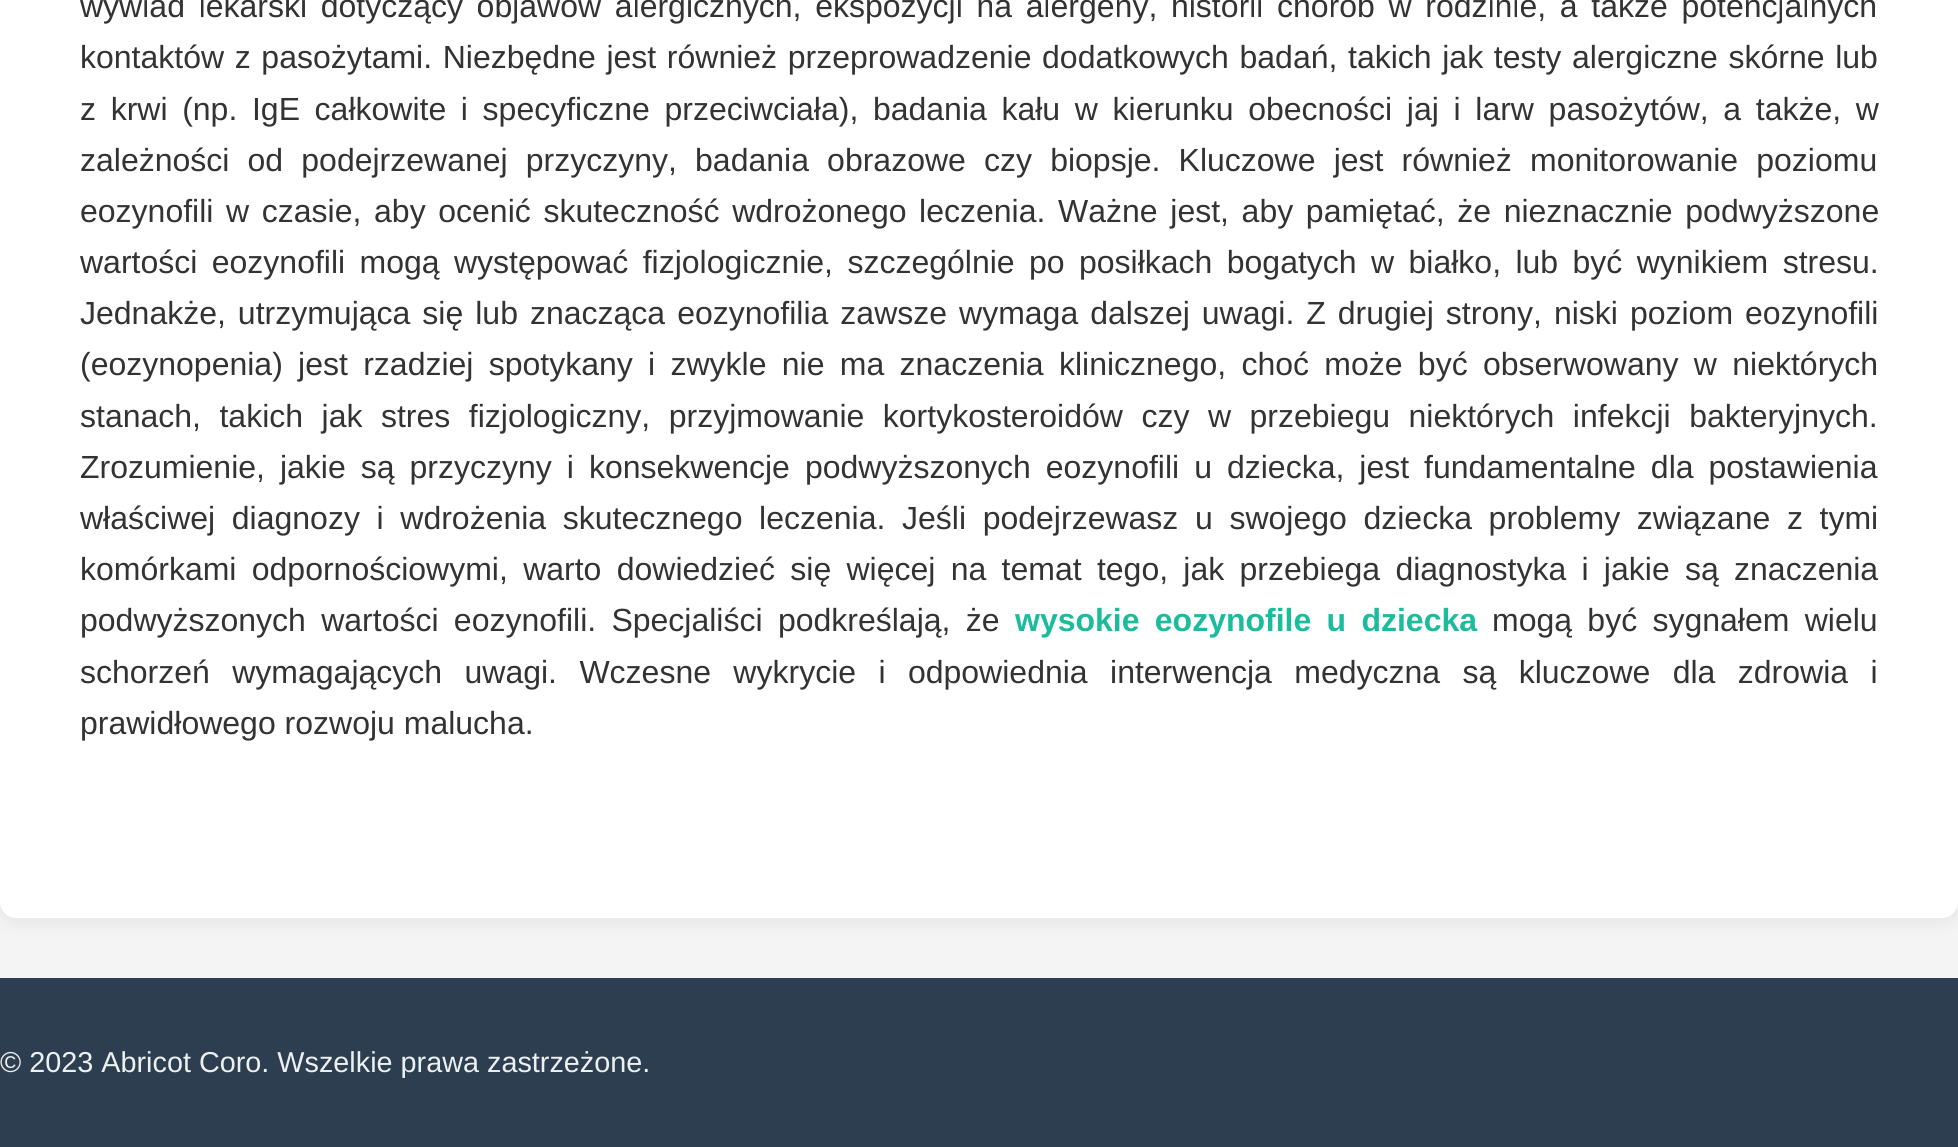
#include <cairo/cairo.h>
#include <math.h>
#include <stddef.h>


static void draw_spaced(cairo_t *cr, double x, double y, const char *s, double letter, double word) {
  cairo_move_to(cr, x, y);
  while (*s) {
    char ch[5] = {0};
    int n = 0;
    do ch[n++] = *s++; while ((*s & 0xC0) == 0x80);
    cairo_show_text(cr, ch);
    cairo_rel_move_to(cr, letter + word * (*ch == ' '), 0);
  }
}

static void rounded_rect(cairo_t *cr, double x, double y, double w, double h, double r) {
  cairo_new_sub_path(cr);
  cairo_arc(cr, x + w - r, y + h - r, r, 0, M_PI / 2);
  cairo_arc(cr, x + r, y + h - r, r, M_PI / 2, M_PI);
  cairo_arc(cr, x + r, y + r, r, M_PI, 1.5 * M_PI);
  cairo_arc(cr, x + w - r, y + r, r, 1.5 * M_PI, 2 * M_PI);
  cairo_close_path(cr);
}

static void draw_shadow(cairo_t *cr, double x, double y, double w, double h, double r, double blur, double alpha) {
  cairo_push_group_with_content(cr, CAIRO_CONTENT_ALPHA);
  cairo_set_operator(cr, CAIRO_OPERATOR_SOURCE);
  for (int i = 15; i >= -15 && fmin(w, h) + blur * i / 3 > 0; i -= 2) {
    double e = blur * i / 6;
    cairo_set_source_rgba(cr, 0, 0, 0, alpha * erfc((i - 1) / 8.5) / 2);
    rounded_rect(cr, x - e, y - e, w + 2 * e, h + 2 * e, fmax(0, fmin(r + e + blur * .6, fmin(w, h) / 2 + e)));
    cairo_fill(cr);
  }
  cairo_pattern_t *soft = cairo_pop_group(cr);
  cairo_mask(cr, soft);
  cairo_pattern_destroy(soft);
}

static void draw(cairo_t *cr) {
  cairo_set_source_rgb(cr, 244 / 255.0, 244 / 255.0, 244 / 255.0);
  cairo_paint(cr);
  cairo_set_source_rgb(cr, 0, 0, 0);
  draw_shadow(cr, 0, -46, 1958, 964, 16, 10, 0.1);
  cairo_set_source_rgb(cr, 1, 1, 1);
  rounded_rect(cr, 0, -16, 1958, 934, 16);
  cairo_fill(cr);
  cairo_set_source_rgb(cr, 44 / 255.0, 62 / 255.0, 80 / 255.0);
  cairo_rectangle(cr, 0, 978, 1958, 169);
  cairo_fill(cr);
  cairo_select_font_face(cr, "Liberation Sans", CAIRO_FONT_SLANT_NORMAL, CAIRO_FONT_WEIGHT_NORMAL);
  cairo_set_font_size(cr, 32);
  cairo_set_source_rgb(cr, 51 / 255.0, 51 / 255.0, 51 / 255.0);
  draw_spaced(cr, 80, 17, "wywiad lekarski dotyczący objawów alergicznych, ekspozycji na alergeny, historii chorób w rodzinie, a także potencjalnych", 0, 4.75);
  draw_spaced(cr, 80, 68, "kontaktów z pasożytami. Niezbędne jest również przeprowadzenie dodatkowych badań, takich jak testy alergiczne skórne lub", 0, 1.75);
  draw_spaced(cr, 80, 120, "z krwi (np. IgE całkowite i specyficzne przeciwciała), badania kału w kierunku obecności jaj i larw pasożytów, a także, w", 0, 5.75);
  draw_spaced(cr, 80, 171, "zależności od podejrzewanej przyczyny, badania obrazowe czy biopsje. Kluczowe jest również monitorowanie poziomu", 0, 9.25);
  draw_spaced(cr, 80, 222, "eozynofili w czasie, aby ocenić skuteczność wdrożonego leczenia. Ważne jest, aby pamiętać, że nieznacznie podwyższone", 0, 3.75);
  draw_spaced(cr, 80, 273, "wartości eozynofili mogą występować fizjologicznie, szczególnie po posiłkach bogatych w białko, lub być wynikiem stresu.", 0, 5.5);
  draw_spaced(cr, 80, 324, "Jednakże, utrzymująca się lub znacząca eozynofilia zawsze wymaga dalszej uwagi. Z drugiej strony, niski poziom eozynofili", 0, 3.1);
  draw_spaced(cr, 80, 375, "(eozynopenia) jest rzadziej spotykany i zwykle nie ma znaczenia klinicznego, choć może być obserwowany w niektórych", 0, 6.4);
  draw_spaced(cr, 80, 427, "stanach, takich jak stres fizjologiczny, przyjmowanie kortykosteroidów czy w przebiegu niektórych infekcji bakteryjnych.", 0, 9.6);
  draw_spaced(cr, 80, 478, "Zrozumienie, jakie są przyczyny i konsekwencje podwyższonych eozynofili u dziecka, jest fundamentalne dla postawienia", 0, 6.1);
  draw_spaced(cr, 80, 529, "właściwej diagnozy i wdrożenia skutecznego leczenia. Jeśli podejrzewasz u swojego dziecka problemy związane z tymi", 0, 7.75);
  draw_spaced(cr, 80, 580, "komórkami odpornościowymi, warto dowiedzieć się więcej na temat tego, jak przebiega diagnostyka i jakie są znaczenia", 0, 6.4);
  draw_spaced(cr, 80, 631, "podwyższonych wartości eozynofili. Specjaliści podkreślają, że", 0, 6.4);
  cairo_select_font_face(cr, "Liberation Sans", CAIRO_FONT_SLANT_NORMAL, CAIRO_FONT_WEIGHT_BOLD);
  cairo_set_source_rgb(cr, 26 / 255.0, 188 / 255.0, 156 / 255.0);
  draw_spaced(cr, 1015, 631, "wysokie eozynofile u dziecka", 0, 6.4);
  cairo_select_font_face(cr, "Liberation Sans", CAIRO_FONT_SLANT_NORMAL, CAIRO_FONT_WEIGHT_NORMAL);
  cairo_set_source_rgb(cr, 51 / 255.0, 51 / 255.0, 51 / 255.0);
  draw_spaced(cr, 1492, 631, "mogą być sygnałem wielu", 0, 6.4);
  draw_spaced(cr, 80, 683, "schorzeń wymagających uwagi. Wczesne wykrycie i odpowiednia interwencja medyczna są kluczowe dla zdrowia i", 0, 13.5);
  cairo_move_to(cr, 80, 734);
  cairo_show_text(cr, "prawidłowego rozwoju malucha.");
  cairo_set_font_size(cr, 28.8);
  cairo_set_source_rgb(cr, 236 / 255.0, 240 / 255.0, 241 / 255.0);
  cairo_move_to(cr, 0, 1072);
  cairo_show_text(cr, "© 2023 Abricot Coro. Wszelkie prawa zastrzeżone.");
}

int main(void) {
  cairo_surface_t *surface = cairo_image_surface_create(CAIRO_FORMAT_RGB24, 1958, 1147);
  cairo_t *cr = cairo_create(surface);
  cairo_font_options_t *options = cairo_font_options_create();
  cairo_font_options_set_hint_metrics(options, CAIRO_HINT_METRICS_OFF);
  cairo_font_options_set_hint_style(options, CAIRO_HINT_STYLE_NONE);
  cairo_set_font_options(cr, options);
  cairo_set_miter_limit(cr, 4);
  draw(cr);
  cairo_surface_write_to_png(surface, "out.png");
  cairo_font_options_destroy(options);
  cairo_destroy(cr);
  cairo_surface_destroy(surface);
  return 0;
}
